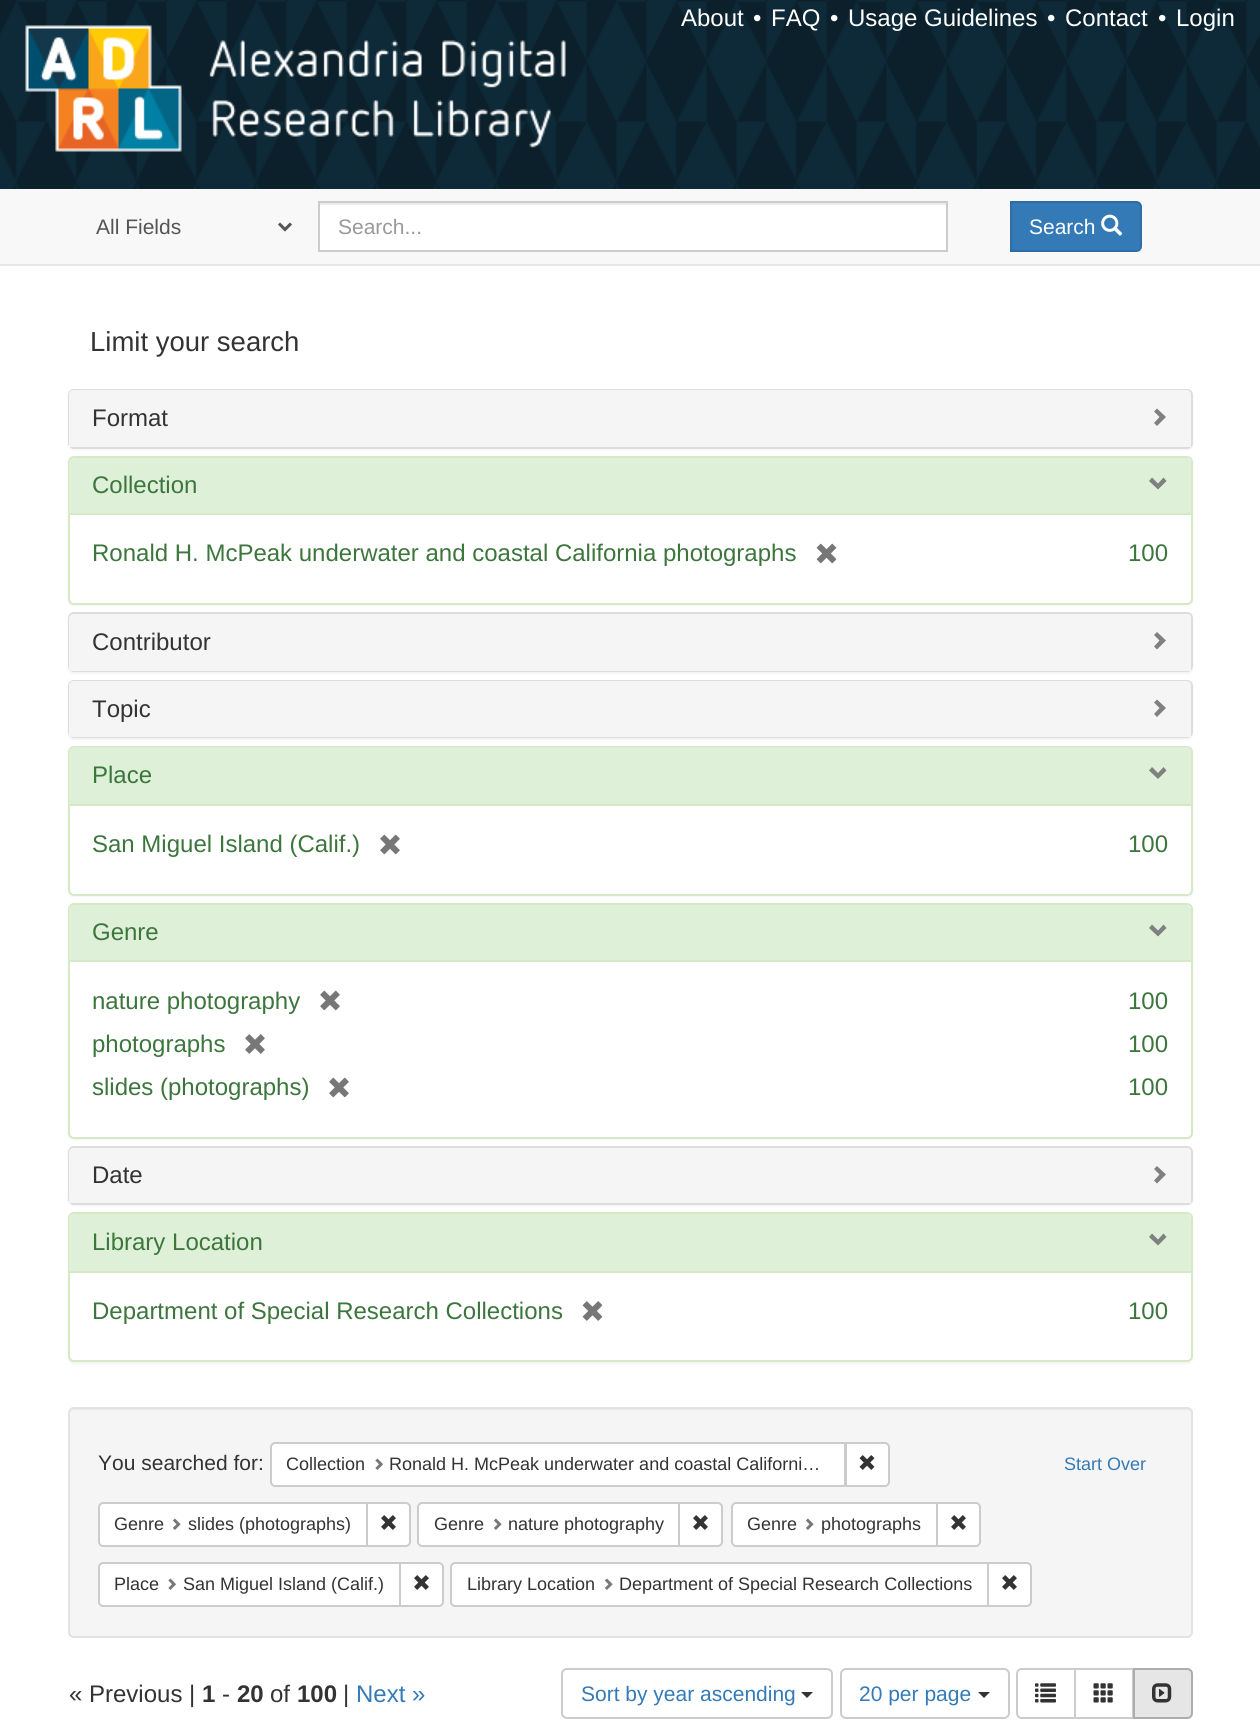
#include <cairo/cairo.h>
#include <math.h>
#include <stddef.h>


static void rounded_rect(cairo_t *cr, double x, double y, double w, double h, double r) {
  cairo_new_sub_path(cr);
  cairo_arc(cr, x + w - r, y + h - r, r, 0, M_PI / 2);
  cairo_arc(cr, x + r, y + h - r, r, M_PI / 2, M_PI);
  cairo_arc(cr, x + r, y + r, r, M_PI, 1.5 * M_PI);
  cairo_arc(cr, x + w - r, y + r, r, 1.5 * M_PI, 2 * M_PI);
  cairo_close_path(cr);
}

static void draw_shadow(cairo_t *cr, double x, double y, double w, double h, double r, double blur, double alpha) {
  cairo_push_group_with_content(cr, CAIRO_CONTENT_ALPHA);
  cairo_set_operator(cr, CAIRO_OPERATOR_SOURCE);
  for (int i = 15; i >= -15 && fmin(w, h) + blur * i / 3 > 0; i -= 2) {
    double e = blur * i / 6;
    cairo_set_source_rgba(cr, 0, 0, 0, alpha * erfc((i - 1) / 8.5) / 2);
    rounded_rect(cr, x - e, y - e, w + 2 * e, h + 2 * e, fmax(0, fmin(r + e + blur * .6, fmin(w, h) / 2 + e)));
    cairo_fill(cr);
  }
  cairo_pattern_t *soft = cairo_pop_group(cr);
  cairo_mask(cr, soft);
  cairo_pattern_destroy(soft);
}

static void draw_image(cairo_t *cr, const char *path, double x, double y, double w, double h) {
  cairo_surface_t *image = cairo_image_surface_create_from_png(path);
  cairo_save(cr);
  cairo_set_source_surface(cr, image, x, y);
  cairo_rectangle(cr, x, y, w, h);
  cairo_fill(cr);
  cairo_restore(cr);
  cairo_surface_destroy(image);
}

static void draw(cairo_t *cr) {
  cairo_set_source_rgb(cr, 1, 1, 1);
  cairo_paint(cr);
  draw_image(cr, "images/1.png", 0, 0, 1260, 189);
  draw_image(cr, "images/2.png", 25, 25, 541, 127);
  cairo_set_source_rgb(cr, 248 / 255.0, 248 / 255.0, 248 / 255.0);
  cairo_rectangle(cr, 0, 189, 1260, 75);
  cairo_fill(cr);
  cairo_set_source_rgb(cr, 231 / 255.0, 231 / 255.0, 231 / 255.0);
  cairo_rectangle(cr, 0, 264, 1260, 2);
  cairo_fill(cr);
  cairo_new_path(cr);
  cairo_move_to(cr, 279, 223.5);
  cairo_line_to(cr, 285, 229.5);
  cairo_line_to(cr, 291, 223.5);
  cairo_set_source_rgb(cr, 85 / 255.0, 85 / 255.0, 85 / 255.0);
  cairo_set_line_width(cr, 3);
  cairo_stroke(cr);
  cairo_set_source_rgb(cr, 1, 1, 1);
  cairo_rectangle(cr, 320, 205, 626, 45);
  cairo_fill(cr);
  cairo_set_source_rgb(cr, 236 / 255.0, 236 / 255.0, 236 / 255.0);
  cairo_rectangle(cr, 320, 203, 627, 2);
  cairo_fill(cr);
  cairo_rectangle(cr, 319, 202, 628, 49);
  cairo_set_source_rgb(cr, 204 / 255.0, 204 / 255.0, 204 / 255.0);
  cairo_set_line_width(cr, 2);
  cairo_stroke(cr);
  cairo_set_source_rgb(cr, 51 / 255.0, 122 / 255.0, 183 / 255.0);
  cairo_new_path(cr);
  cairo_move_to(cr, 1011, 202);
  cairo_line_to(cr, 1136, 202);
  cairo_curve_to(cr, 1139, 202, 1141, 204, 1141, 207);
  cairo_line_to(cr, 1141, 246);
  cairo_curve_to(cr, 1141, 249, 1139, 251, 1136, 251);
  cairo_line_to(cr, 1011, 251);
  cairo_close_path(cr);
  cairo_fill_preserve(cr);
  cairo_set_source_rgb(cr, 46 / 255.0, 109 / 255.0, 164 / 255.0);
  cairo_stroke(cr);
  draw_image(cr, "images/3.png", 1101, 214, 22, 22);
  cairo_set_source_rgb(cr, 0, 0, 0);
  draw_shadow(cr, 68, 390, 1125, 60, 6, 1, 0.05);
  rounded_rect(cr, 69, 390, 1123, 58, 5);
  cairo_set_source_rgb(cr, 221 / 255.0, 221 / 255.0, 221 / 255.0);
  cairo_stroke(cr);
  cairo_set_source_rgb(cr, 245 / 255.0, 245 / 255.0, 245 / 255.0);
  cairo_new_path(cr);
  cairo_move_to(cr, 74, 390);
  cairo_line_to(cr, 1186, 390);
  cairo_curve_to(cr, 1189, 390, 1191, 392, 1191, 395);
  cairo_line_to(cr, 1191, 447);
  cairo_line_to(cr, 69, 447);
  cairo_line_to(cr, 69, 395);
  cairo_curve_to(cr, 69, 392, 71, 390, 74, 390);
  cairo_close_path(cr);
  cairo_fill(cr);
  cairo_set_source_rgb(cr, 128 / 255.0, 128 / 255.0, 128 / 255.0);
  cairo_new_path(cr);
  cairo_move_to(cr, 1166, 417);
  cairo_line_to(cr, 1157, 426);
  cairo_line_to(cr, 1154, 423);
  cairo_line_to(cr, 1159.5, 417);
  cairo_line_to(cr, 1154, 411.5);
  cairo_line_to(cr, 1157, 408.5);
  cairo_close_path(cr);
  cairo_fill(cr);
  cairo_set_source_rgb(cr, 0, 0, 0);
  draw_shadow(cr, 68, 458, 1125, 148, 6, 1, 0.05);
  cairo_set_source_rgb(cr, 1, 1, 1);
  rounded_rect(cr, 69, 457, 1123, 147, 5);
  cairo_fill_preserve(cr);
  cairo_set_source_rgb(cr, 214 / 255.0, 233 / 255.0, 198 / 255.0);
  cairo_stroke(cr);
  cairo_set_source_rgb(cr, 223 / 255.0, 240 / 255.0, 216 / 255.0);
  cairo_new_path(cr);
  cairo_move_to(cr, 74, 458);
  cairo_line_to(cr, 1186, 458);
  cairo_curve_to(cr, 1189, 458, 1191, 460, 1191, 463);
  cairo_line_to(cr, 1191, 513);
  cairo_line_to(cr, 69, 513);
  cairo_line_to(cr, 69, 463);
  cairo_curve_to(cr, 69, 460, 71, 458, 74, 458);
  cairo_close_path(cr);
  cairo_fill(cr);
  cairo_set_source_rgb(cr, 128 / 255.0, 128 / 255.0, 128 / 255.0);
  cairo_new_path(cr);
  cairo_move_to(cr, 1166.5, 481);
  cairo_line_to(cr, 1158, 489.5);
  cairo_line_to(cr, 1149, 481);
  cairo_line_to(cr, 1152, 477.5);
  cairo_line_to(cr, 1158, 483.5);
  cairo_line_to(cr, 1163.5, 477.5);
  cairo_close_path(cr);
  cairo_fill(cr);
  cairo_set_source_rgb(cr, 214 / 255.0, 233 / 255.0, 198 / 255.0);
  cairo_rectangle(cr, 69, 513, 1122, 2);
  cairo_fill(cr);
  draw_image(cr, "images/4.png", 816, 543, 21, 21);
  cairo_set_source_rgb(cr, 0, 0, 0);
  draw_shadow(cr, 68, 614, 1125, 60, 6, 1, 0.05);
  cairo_set_source_rgb(cr, 1, 1, 1);
  rounded_rect(cr, 69, 613, 1123, 58, 5);
  cairo_fill_preserve(cr);
  cairo_set_source_rgb(cr, 221 / 255.0, 221 / 255.0, 221 / 255.0);
  cairo_stroke(cr);
  cairo_set_source_rgb(cr, 245 / 255.0, 245 / 255.0, 245 / 255.0);
  cairo_new_path(cr);
  cairo_move_to(cr, 74, 614);
  cairo_line_to(cr, 1186, 614);
  cairo_curve_to(cr, 1189, 614, 1191, 616, 1191, 619);
  cairo_line_to(cr, 1191, 671);
  cairo_line_to(cr, 69, 671);
  cairo_line_to(cr, 69, 619);
  cairo_curve_to(cr, 69, 616, 71, 614, 74, 614);
  cairo_close_path(cr);
  cairo_fill(cr);
  cairo_set_source_rgb(cr, 128 / 255.0, 128 / 255.0, 128 / 255.0);
  cairo_new_path(cr);
  cairo_move_to(cr, 1166, 640.5);
  cairo_line_to(cr, 1157, 649.5);
  cairo_line_to(cr, 1154, 646.5);
  cairo_line_to(cr, 1159.5, 640.5);
  cairo_line_to(cr, 1154, 635);
  cairo_line_to(cr, 1157, 632);
  cairo_close_path(cr);
  cairo_fill(cr);
  cairo_set_source_rgb(cr, 0, 0, 0);
  draw_shadow(cr, 68, 681, 1125, 59, 6, 1, 0.05);
  rounded_rect(cr, 69, 681, 1123, 56, 5);
  cairo_set_source_rgb(cr, 221 / 255.0, 221 / 255.0, 221 / 255.0);
  cairo_stroke(cr);
  cairo_set_source_rgb(cr, 245 / 255.0, 245 / 255.0, 245 / 255.0);
  cairo_new_path(cr);
  cairo_move_to(cr, 74, 681);
  cairo_line_to(cr, 1186, 681);
  cairo_curve_to(cr, 1189, 681, 1191, 683, 1191, 686);
  cairo_line_to(cr, 1191, 737);
  cairo_line_to(cr, 69, 737);
  cairo_line_to(cr, 69, 686);
  cairo_curve_to(cr, 69, 683, 71, 681, 74, 681);
  cairo_close_path(cr);
  cairo_fill(cr);
  cairo_set_source_rgb(cr, 128 / 255.0, 128 / 255.0, 128 / 255.0);
  cairo_new_path(cr);
  cairo_move_to(cr, 1166, 708);
  cairo_line_to(cr, 1157, 717);
  cairo_line_to(cr, 1154, 714);
  cairo_line_to(cr, 1159.5, 708);
  cairo_line_to(cr, 1154, 702.5);
  cairo_line_to(cr, 1157, 699.5);
  cairo_close_path(cr);
  cairo_fill(cr);
  cairo_set_source_rgb(cr, 0, 0, 0);
  draw_shadow(cr, 68, 747, 1125, 150, 6, 1, 0.05);
  cairo_set_source_rgb(cr, 1, 1, 1);
  rounded_rect(cr, 69, 747, 1123, 148, 5);
  cairo_fill_preserve(cr);
  cairo_set_source_rgb(cr, 214 / 255.0, 233 / 255.0, 198 / 255.0);
  cairo_stroke(cr);
  cairo_set_source_rgb(cr, 223 / 255.0, 240 / 255.0, 216 / 255.0);
  cairo_new_path(cr);
  cairo_move_to(cr, 74, 747);
  cairo_line_to(cr, 1186, 747);
  cairo_curve_to(cr, 1189, 747, 1191, 749, 1191, 752);
  cairo_line_to(cr, 1191, 804);
  cairo_line_to(cr, 69, 804);
  cairo_line_to(cr, 69, 752);
  cairo_curve_to(cr, 69, 749, 71, 747, 74, 747);
  cairo_close_path(cr);
  cairo_fill(cr);
  cairo_set_source_rgb(cr, 128 / 255.0, 128 / 255.0, 128 / 255.0);
  cairo_new_path(cr);
  cairo_move_to(cr, 1166.5, 770.5);
  cairo_line_to(cr, 1158, 779);
  cairo_line_to(cr, 1149, 770.5);
  cairo_line_to(cr, 1152, 767);
  cairo_line_to(cr, 1158, 773);
  cairo_line_to(cr, 1163.5, 767);
  cairo_close_path(cr);
  cairo_fill(cr);
  cairo_set_source_rgb(cr, 214 / 255.0, 233 / 255.0, 198 / 255.0);
  cairo_rectangle(cr, 69, 804, 1122, 2);
  cairo_fill(cr);
  draw_image(cr, "images/5.png", 380, 834, 20, 21);
  cairo_set_source_rgb(cr, 0, 0, 0);
  draw_shadow(cr, 68, 905, 1125, 235, 6, 1, 0.05);
  cairo_set_source_rgb(cr, 1, 1, 1);
  rounded_rect(cr, 69, 904, 1123, 234, 5);
  cairo_fill_preserve(cr);
  cairo_set_source_rgb(cr, 214 / 255.0, 233 / 255.0, 198 / 255.0);
  cairo_stroke(cr);
  cairo_set_source_rgb(cr, 223 / 255.0, 240 / 255.0, 216 / 255.0);
  cairo_new_path(cr);
  cairo_move_to(cr, 74, 905);
  cairo_line_to(cr, 1186, 905);
  cairo_curve_to(cr, 1189, 905, 1191, 907, 1191, 910);
  cairo_line_to(cr, 1191, 960);
  cairo_line_to(cr, 69, 960);
  cairo_line_to(cr, 69, 910);
  cairo_curve_to(cr, 69, 907, 71, 905, 74, 905);
  cairo_close_path(cr);
  cairo_fill(cr);
  cairo_set_source_rgb(cr, 128 / 255.0, 128 / 255.0, 128 / 255.0);
  cairo_new_path(cr);
  cairo_move_to(cr, 1166.5, 928);
  cairo_line_to(cr, 1158, 936.5);
  cairo_line_to(cr, 1149, 928);
  cairo_line_to(cr, 1152, 924.5);
  cairo_line_to(cr, 1158, 930.5);
  cairo_line_to(cr, 1163.5, 924.5);
  cairo_close_path(cr);
  cairo_fill(cr);
  cairo_set_source_rgb(cr, 214 / 255.0, 233 / 255.0, 198 / 255.0);
  cairo_rectangle(cr, 69, 960, 1122, 2);
  cairo_fill(cr);
  draw_image(cr, "images/5.png", 320, 990, 20, 21);
  draw_image(cr, "images/6.png", 245, 1034, 20, 20);
  draw_image(cr, "images/5.png", 329, 1077, 20, 21);
  cairo_set_source_rgb(cr, 0, 0, 0);
  draw_shadow(cr, 68, 1148, 1125, 58, 6, 1, 0.05);
  cairo_set_source_rgb(cr, 1, 1, 1);
  rounded_rect(cr, 69, 1147, 1123, 57, 5);
  cairo_fill_preserve(cr);
  cairo_set_source_rgb(cr, 221 / 255.0, 221 / 255.0, 221 / 255.0);
  cairo_stroke(cr);
  cairo_set_source_rgb(cr, 245 / 255.0, 245 / 255.0, 245 / 255.0);
  cairo_new_path(cr);
  cairo_move_to(cr, 74, 1148);
  cairo_line_to(cr, 1186, 1148);
  cairo_curve_to(cr, 1189, 1148, 1191, 1150, 1191, 1153);
  cairo_line_to(cr, 1191, 1203);
  cairo_line_to(cr, 69, 1203);
  cairo_line_to(cr, 69, 1153);
  cairo_curve_to(cr, 69, 1150, 71, 1148, 74, 1148);
  cairo_close_path(cr);
  cairo_fill(cr);
  cairo_set_source_rgb(cr, 128 / 255.0, 128 / 255.0, 128 / 255.0);
  cairo_new_path(cr);
  cairo_move_to(cr, 1166, 1174.5);
  cairo_line_to(cr, 1157, 1183.5);
  cairo_line_to(cr, 1154, 1180.5);
  cairo_line_to(cr, 1159.5, 1174.5);
  cairo_line_to(cr, 1154, 1169);
  cairo_line_to(cr, 1157, 1166);
  cairo_close_path(cr);
  cairo_fill(cr);
  cairo_set_source_rgb(cr, 0, 0, 0);
  draw_shadow(cr, 68, 1214, 1125, 150, 6, 1, 0.05);
  cairo_set_source_rgb(cr, 1, 1, 1);
  rounded_rect(cr, 69, 1213, 1123, 148, 5);
  cairo_fill_preserve(cr);
  cairo_set_source_rgb(cr, 214 / 255.0, 233 / 255.0, 198 / 255.0);
  cairo_stroke(cr);
  cairo_set_source_rgb(cr, 223 / 255.0, 240 / 255.0, 216 / 255.0);
  cairo_new_path(cr);
  cairo_move_to(cr, 74, 1214);
  cairo_line_to(cr, 1186, 1214);
  cairo_curve_to(cr, 1189, 1214, 1191, 1216, 1191, 1219);
  cairo_line_to(cr, 1191, 1271);
  cairo_line_to(cr, 69, 1271);
  cairo_line_to(cr, 69, 1219);
  cairo_curve_to(cr, 69, 1216, 71, 1214, 74, 1214);
  cairo_close_path(cr);
  cairo_fill(cr);
  cairo_set_source_rgb(cr, 128 / 255.0, 128 / 255.0, 128 / 255.0);
  cairo_new_path(cr);
  cairo_move_to(cr, 1166.5, 1237);
  cairo_line_to(cr, 1158, 1245.5);
  cairo_line_to(cr, 1149, 1237);
  cairo_line_to(cr, 1152, 1233.5);
  cairo_line_to(cr, 1158, 1239.5);
  cairo_line_to(cr, 1163.5, 1233.5);
  cairo_close_path(cr);
  cairo_fill(cr);
  cairo_set_source_rgb(cr, 214 / 255.0, 233 / 255.0, 198 / 255.0);
  cairo_rectangle(cr, 69, 1271, 1122, 2);
  cairo_fill(cr);
  draw_image(cr, "images/7.png", 582, 1301, 21, 20);
  cairo_set_source_rgb(cr, 245 / 255.0, 245 / 255.0, 245 / 255.0);
  rounded_rect(cr, 68, 1407, 1125, 231, 6);
  cairo_fill(cr);
  cairo_set_source_rgb(cr, 233 / 255.0, 233 / 255.0, 233 / 255.0);
  cairo_new_path(cr);
  cairo_move_to(cr, 74, 1410);
  cairo_line_to(cr, 1186, 1410);
  cairo_curve_to(cr, 1189, 1410, 1191, 1412, 1191, 1414);
  cairo_curve_to(cr, 1191, 1411, 1189, 1409, 1186, 1409);
  cairo_line_to(cr, 74, 1409);
  cairo_curve_to(cr, 71, 1409, 69, 1411, 69, 1414);
  cairo_curve_to(cr, 69, 1412, 71, 1410, 74, 1410);
  cairo_close_path(cr);
  cairo_fill(cr);
  rounded_rect(cr, 69, 1408, 1123, 229, 5);
  cairo_set_source_rgb(cr, 227 / 255.0, 227 / 255.0, 227 / 255.0);
  cairo_stroke(cr);
  cairo_set_source_rgb(cr, 1, 1, 1);
  cairo_new_path(cr);
  cairo_move_to(cr, 275, 1443);
  cairo_line_to(cr, 845, 1443);
  cairo_line_to(cr, 845, 1486);
  cairo_line_to(cr, 275, 1486);
  cairo_curve_to(cr, 273, 1486, 271, 1484, 271, 1482);
  cairo_line_to(cr, 271, 1447);
  cairo_curve_to(cr, 271, 1445, 273, 1443, 275, 1443);
  cairo_close_path(cr);
  cairo_fill_preserve(cr);
  cairo_set_source_rgb(cr, 204 / 255.0, 204 / 255.0, 204 / 255.0);
  cairo_stroke(cr);
  draw_image(cr, "images/8.png", 375, 1458, 8, 12);
  cairo_set_source_rgb(cr, 1, 1, 1);
  cairo_new_path(cr);
  cairo_move_to(cr, 846, 1443);
  cairo_line_to(cr, 885, 1443);
  cairo_curve_to(cr, 887, 1443, 889, 1445, 889, 1447);
  cairo_line_to(cr, 889, 1482);
  cairo_curve_to(cr, 889, 1484, 887, 1486, 885, 1486);
  cairo_line_to(cr, 846, 1486);
  cairo_close_path(cr);
  cairo_fill_preserve(cr);
  cairo_set_source_rgb(cr, 204 / 255.0, 204 / 255.0, 204 / 255.0);
  cairo_stroke(cr);
  draw_image(cr, "images/9.png", 859, 1455, 16, 15);
  cairo_set_source_rgb(cr, 1, 1, 1);
  cairo_new_path(cr);
  cairo_move_to(cr, 103, 1503);
  cairo_line_to(cr, 367, 1503);
  cairo_line_to(cr, 367, 1546);
  cairo_line_to(cr, 103, 1546);
  cairo_curve_to(cr, 101, 1546, 99, 1544, 99, 1542);
  cairo_line_to(cr, 99, 1507);
  cairo_curve_to(cr, 99, 1505, 101, 1503, 103, 1503);
  cairo_close_path(cr);
  cairo_fill_preserve(cr);
  cairo_set_source_rgb(cr, 204 / 255.0, 204 / 255.0, 204 / 255.0);
  cairo_stroke(cr);
  draw_image(cr, "images/10.png", 172, 1518, 9, 12);
  cairo_set_source_rgb(cr, 1, 1, 1);
  cairo_new_path(cr);
  cairo_move_to(cr, 367, 1503);
  cairo_line_to(cr, 406, 1503);
  cairo_curve_to(cr, 408, 1503, 410, 1505, 410, 1507);
  cairo_line_to(cr, 410, 1542);
  cairo_curve_to(cr, 410, 1544, 408, 1546, 406, 1546);
  cairo_line_to(cr, 367, 1546);
  cairo_close_path(cr);
  cairo_fill_preserve(cr);
  cairo_set_source_rgb(cr, 204 / 255.0, 204 / 255.0, 204 / 255.0);
  cairo_stroke(cr);
  draw_image(cr, "images/11.png", 381, 1515, 15, 15);
  cairo_set_source_rgb(cr, 1, 1, 1);
  cairo_new_path(cr);
  cairo_move_to(cr, 422, 1503);
  cairo_line_to(cr, 679, 1503);
  cairo_line_to(cr, 679, 1546);
  cairo_line_to(cr, 422, 1546);
  cairo_curve_to(cr, 420, 1546, 418, 1544, 418, 1542);
  cairo_line_to(cr, 418, 1507);
  cairo_curve_to(cr, 418, 1505, 420, 1503, 422, 1503);
  cairo_close_path(cr);
  cairo_fill_preserve(cr);
  cairo_set_source_rgb(cr, 204 / 255.0, 204 / 255.0, 204 / 255.0);
  cairo_stroke(cr);
  draw_image(cr, "images/10.png", 493, 1518, 9, 12);
  cairo_set_source_rgb(cr, 1, 1, 1);
  cairo_new_path(cr);
  cairo_move_to(cr, 679, 1503);
  cairo_line_to(cr, 718, 1503);
  cairo_curve_to(cr, 720, 1503, 722, 1505, 722, 1507);
  cairo_line_to(cr, 722, 1542);
  cairo_curve_to(cr, 722, 1544, 720, 1546, 718, 1546);
  cairo_line_to(cr, 679, 1546);
  cairo_close_path(cr);
  cairo_fill_preserve(cr);
  cairo_set_source_rgb(cr, 204 / 255.0, 204 / 255.0, 204 / 255.0);
  cairo_stroke(cr);
  draw_image(cr, "images/11.png", 693, 1515, 15, 15);
  cairo_set_source_rgb(cr, 1, 1, 1);
  cairo_new_path(cr);
  cairo_move_to(cr, 736, 1503);
  cairo_line_to(cr, 937, 1503);
  cairo_line_to(cr, 937, 1546);
  cairo_line_to(cr, 736, 1546);
  cairo_curve_to(cr, 734, 1546, 732, 1544, 732, 1542);
  cairo_line_to(cr, 732, 1507);
  cairo_curve_to(cr, 732, 1505, 734, 1503, 736, 1503);
  cairo_close_path(cr);
  cairo_fill_preserve(cr);
  cairo_set_source_rgb(cr, 204 / 255.0, 204 / 255.0, 204 / 255.0);
  cairo_stroke(cr);
  draw_image(cr, "images/10.png", 805, 1518, 9, 12);
  cairo_set_source_rgb(cr, 1, 1, 1);
  cairo_new_path(cr);
  cairo_move_to(cr, 937, 1503);
  cairo_line_to(cr, 976, 1503);
  cairo_curve_to(cr, 978, 1503, 980, 1505, 980, 1507);
  cairo_line_to(cr, 980, 1542);
  cairo_curve_to(cr, 980, 1544, 978, 1546, 976, 1546);
  cairo_line_to(cr, 937, 1546);
  cairo_close_path(cr);
  cairo_fill_preserve(cr);
  cairo_set_source_rgb(cr, 204 / 255.0, 204 / 255.0, 204 / 255.0);
  cairo_stroke(cr);
  draw_image(cr, "images/11.png", 951, 1515, 15, 15);
  cairo_set_source_rgb(cr, 1, 1, 1);
  cairo_new_path(cr);
  cairo_move_to(cr, 103, 1563);
  cairo_line_to(cr, 400, 1563);
  cairo_line_to(cr, 400, 1606);
  cairo_line_to(cr, 103, 1606);
  cairo_curve_to(cr, 101, 1606, 99, 1604, 99, 1602);
  cairo_line_to(cr, 99, 1567);
  cairo_curve_to(cr, 99, 1565, 101, 1563, 103, 1563);
  cairo_close_path(cr);
  cairo_fill_preserve(cr);
  cairo_set_source_rgb(cr, 204 / 255.0, 204 / 255.0, 204 / 255.0);
  cairo_stroke(cr);
  draw_image(cr, "images/8.png", 168, 1578, 8, 12);
  cairo_set_source_rgb(cr, 1, 1, 1);
  cairo_new_path(cr);
  cairo_move_to(cr, 400, 1563);
  cairo_line_to(cr, 439, 1563);
  cairo_curve_to(cr, 441, 1563, 443, 1565, 443, 1567);
  cairo_line_to(cr, 443, 1602);
  cairo_curve_to(cr, 443, 1604, 441, 1606, 439, 1606);
  cairo_line_to(cr, 400, 1606);
  cairo_close_path(cr);
  cairo_fill_preserve(cr);
  cairo_set_source_rgb(cr, 204 / 255.0, 204 / 255.0, 204 / 255.0);
  cairo_stroke(cr);
  draw_image(cr, "images/11.png", 414, 1575, 15, 15);
  cairo_set_source_rgb(cr, 1, 1, 1);
  cairo_new_path(cr);
  cairo_move_to(cr, 455, 1563);
  cairo_line_to(cr, 988, 1563);
  cairo_line_to(cr, 988, 1606);
  cairo_line_to(cr, 455, 1606);
  cairo_curve_to(cr, 453, 1606, 451, 1604, 451, 1602);
  cairo_line_to(cr, 451, 1567);
  cairo_curve_to(cr, 451, 1565, 453, 1563, 455, 1563);
  cairo_close_path(cr);
  cairo_fill_preserve(cr);
  cairo_set_source_rgb(cr, 204 / 255.0, 204 / 255.0, 204 / 255.0);
  cairo_stroke(cr);
  draw_image(cr, "images/10.png", 604, 1578, 9, 12);
  cairo_set_source_rgb(cr, 1, 1, 1);
  cairo_new_path(cr);
  cairo_move_to(cr, 988, 1563);
  cairo_line_to(cr, 1027, 1563);
  cairo_curve_to(cr, 1029, 1563, 1031, 1565, 1031, 1567);
  cairo_line_to(cr, 1031, 1602);
  cairo_curve_to(cr, 1031, 1604, 1029, 1606, 1027, 1606);
  cairo_line_to(cr, 988, 1606);
  cairo_close_path(cr);
  cairo_fill_preserve(cr);
  cairo_set_source_rgb(cr, 204 / 255.0, 204 / 255.0, 204 / 255.0);
  cairo_stroke(cr);
  draw_image(cr, "images/11.png", 1002, 1575, 15, 15);
  rounded_rect(cr, 562, 1669, 270, 49, 5);
  cairo_stroke(cr);
  cairo_set_source_rgb(cr, 51 / 255.0, 51 / 255.0, 51 / 255.0);
  cairo_new_path(cr);
  cairo_move_to(cr, 801, 1692);
  cairo_line_to(cr, 813, 1692);
  cairo_line_to(cr, 807, 1698);
  cairo_close_path(cr);
  cairo_fill(cr);
  rounded_rect(cr, 841, 1669, 168, 49, 5);
  cairo_set_source_rgb(cr, 204 / 255.0, 204 / 255.0, 204 / 255.0);
  cairo_stroke(cr);
  cairo_set_source_rgb(cr, 51 / 255.0, 51 / 255.0, 51 / 255.0);
  cairo_new_path(cr);
  cairo_move_to(cr, 978, 1692);
  cairo_line_to(cr, 990, 1692);
  cairo_line_to(cr, 984, 1698);
  cairo_close_path(cr);
  cairo_fill(cr);
  cairo_new_path(cr);
  cairo_move_to(cr, 1022, 1669);
  cairo_line_to(cr, 1075, 1669);
  cairo_line_to(cr, 1075, 1718);
  cairo_line_to(cr, 1022, 1718);
  cairo_curve_to(cr, 1019, 1718, 1017, 1716, 1017, 1713);
  cairo_line_to(cr, 1017, 1674);
  cairo_curve_to(cr, 1017, 1671, 1019, 1669, 1022, 1669);
  cairo_close_path(cr);
  cairo_set_source_rgb(cr, 204 / 255.0, 204 / 255.0, 204 / 255.0);
  cairo_stroke(cr);
  draw_image(cr, "images/12.png", 1035, 1683, 21, 20);
  cairo_rectangle(cr, 1075, 1669, 58, 49);
  cairo_stroke(cr);
  draw_image(cr, "images/13.png", 1093, 1683, 20, 20);
  cairo_set_source_rgb(cr, 230 / 255.0, 230 / 255.0, 230 / 255.0);
  cairo_new_path(cr);
  cairo_move_to(cr, 1134, 1669);
  cairo_line_to(cr, 1187, 1669);
  cairo_curve_to(cr, 1190, 1669, 1192, 1671, 1192, 1674);
  cairo_line_to(cr, 1192, 1713);
  cairo_curve_to(cr, 1192, 1716, 1190, 1718, 1187, 1718);
  cairo_line_to(cr, 1134, 1718);
  cairo_close_path(cr);
  cairo_fill_preserve(cr);
  cairo_set_source_rgb(cr, 173 / 255.0, 173 / 255.0, 173 / 255.0);
  cairo_stroke(cr);
  draw_image(cr, "images/14.png", 1152, 1683, 20, 20);
  cairo_select_font_face(cr, "Liberation Sans", CAIRO_FONT_SLANT_NORMAL, CAIRO_FONT_WEIGHT_NORMAL);
  cairo_set_font_size(cr, 24);
  cairo_set_source_rgb(cr, 1, 1, 1);
  cairo_move_to(cr, 681, 26);
  cairo_show_text(cr, "About");
  cairo_move_to(cr, 753, 26);
  cairo_show_text(cr, "•");
  cairo_move_to(cr, 771, 26);
  cairo_show_text(cr, "FAQ");
  cairo_move_to(cr, 830, 26);
  cairo_show_text(cr, "•");
  cairo_move_to(cr, 848, 26);
  cairo_show_text(cr, "Usage Guidelines");
  cairo_move_to(cr, 1047, 26);
  cairo_show_text(cr, "•");
  cairo_move_to(cr, 1065, 26);
  cairo_show_text(cr, "Contact");
  cairo_move_to(cr, 1158, 26);
  cairo_show_text(cr, "•");
  cairo_move_to(cr, 1176, 26);
  cairo_show_text(cr, "Login");
  cairo_set_font_size(cr, 21);
  cairo_set_source_rgb(cr, 85 / 255.0, 85 / 255.0, 85 / 255.0);
  cairo_move_to(cr, 96, 234);
  cairo_show_text(cr, "All Fields");
  cairo_set_source_rgb(cr, 153 / 255.0, 153 / 255.0, 153 / 255.0);
  cairo_move_to(cr, 338, 234);
  cairo_show_text(cr, "Search...");
  cairo_set_source_rgb(cr, 1, 1, 1);
  cairo_move_to(cr, 1029, 234);
  cairo_show_text(cr, "Search");
  cairo_set_font_size(cr, 27.5);
  cairo_set_source_rgb(cr, 51 / 255.0, 51 / 255.0, 51 / 255.0);
  cairo_move_to(cr, 90, 351);
  cairo_show_text(cr, "Limit your search");
  cairo_set_font_size(cr, 24);
  cairo_move_to(cr, 92, 426);
  cairo_show_text(cr, "Format");
  cairo_set_source_rgb(cr, 60 / 255.0, 118 / 255.0, 61 / 255.0);
  cairo_move_to(cr, 92, 493);
  cairo_show_text(cr, "Collection");
  cairo_move_to(cr, 92, 561);
  cairo_show_text(cr, "Ronald H. McPeak underwater and coastal California photographs");
  cairo_move_to(cr, 1128, 561);
  cairo_show_text(cr, "100");
  cairo_set_source_rgb(cr, 51 / 255.0, 51 / 255.0, 51 / 255.0);
  cairo_move_to(cr, 92, 650);
  cairo_show_text(cr, "Contributor");
  cairo_move_to(cr, 92, 717);
  cairo_show_text(cr, "Topic");
  cairo_set_source_rgb(cr, 60 / 255.0, 118 / 255.0, 61 / 255.0);
  cairo_move_to(cr, 92, 783);
  cairo_show_text(cr, "Place");
  cairo_move_to(cr, 92, 852);
  cairo_show_text(cr, "San Miguel Island (Calif.)");
  cairo_move_to(cr, 1128, 852);
  cairo_show_text(cr, "100");
  cairo_move_to(cr, 92, 940);
  cairo_show_text(cr, "Genre");
  cairo_move_to(cr, 92, 1009);
  cairo_show_text(cr, "nature photography");
  cairo_move_to(cr, 1128, 1009);
  cairo_show_text(cr, "100");
  cairo_move_to(cr, 92, 1052);
  cairo_show_text(cr, "photographs");
  cairo_move_to(cr, 1128, 1052);
  cairo_show_text(cr, "100");
  cairo_move_to(cr, 92, 1095);
  cairo_show_text(cr, "slides (photographs)");
  cairo_move_to(cr, 1128, 1095);
  cairo_show_text(cr, "100");
  cairo_set_source_rgb(cr, 51 / 255.0, 51 / 255.0, 51 / 255.0);
  cairo_move_to(cr, 92, 1183);
  cairo_show_text(cr, "Date");
  cairo_set_source_rgb(cr, 60 / 255.0, 118 / 255.0, 61 / 255.0);
  cairo_move_to(cr, 92, 1250);
  cairo_show_text(cr, "Library Location");
  cairo_move_to(cr, 92, 1319);
  cairo_show_text(cr, "Department of Special Research Collections");
  cairo_move_to(cr, 1128, 1319);
  cairo_show_text(cr, "100");
  cairo_set_font_size(cr, 21);
  cairo_set_source_rgb(cr, 51 / 255.0, 51 / 255.0, 51 / 255.0);
  cairo_move_to(cr, 98, 1470);
  cairo_show_text(cr, "You searched for:");
  cairo_set_font_size(cr, 18);
  cairo_move_to(cr, 286, 1470);
  cairo_show_text(cr, "Collection");
  cairo_move_to(cr, 389, 1470);
  cairo_show_text(cr, "Ronald H. McPeak underwater and coastal Californi…");
  cairo_set_source_rgb(cr, 51 / 255.0, 122 / 255.0, 183 / 255.0);
  cairo_move_to(cr, 1064, 1470);
  cairo_show_text(cr, "Start Over");
  cairo_set_source_rgb(cr, 51 / 255.0, 51 / 255.0, 51 / 255.0);
  cairo_move_to(cr, 114, 1530);
  cairo_show_text(cr, "Genre");
  cairo_move_to(cr, 188, 1530);
  cairo_show_text(cr, "slides (photographs)");
  cairo_move_to(cr, 434, 1530);
  cairo_show_text(cr, "Genre");
  cairo_move_to(cr, 508, 1530);
  cairo_show_text(cr, "nature photography");
  cairo_move_to(cr, 747, 1530);
  cairo_show_text(cr, "Genre");
  cairo_move_to(cr, 821, 1530);
  cairo_show_text(cr, "photographs");
  cairo_move_to(cr, 114, 1590);
  cairo_show_text(cr, "Place");
  cairo_move_to(cr, 183, 1590);
  cairo_show_text(cr, "San Miguel Island (Calif.)");
  cairo_move_to(cr, 467, 1590);
  cairo_show_text(cr, "Library Location");
  cairo_move_to(cr, 619, 1590);
  cairo_show_text(cr, "Department of Special Research Collections");
  cairo_set_font_size(cr, 24);
  cairo_move_to(cr, 69, 1702);
  cairo_show_text(cr, "« Previous |");
  cairo_select_font_face(cr, "Liberation Sans", CAIRO_FONT_SLANT_NORMAL, CAIRO_FONT_WEIGHT_BOLD);
  cairo_move_to(cr, 202, 1702);
  cairo_show_text(cr, "1");
  cairo_select_font_face(cr, "Liberation Sans", CAIRO_FONT_SLANT_NORMAL, CAIRO_FONT_WEIGHT_NORMAL);
  cairo_move_to(cr, 222, 1702);
  cairo_show_text(cr, "-");
  cairo_select_font_face(cr, "Liberation Sans", CAIRO_FONT_SLANT_NORMAL, CAIRO_FONT_WEIGHT_BOLD);
  cairo_move_to(cr, 237, 1702);
  cairo_show_text(cr, "20");
  cairo_select_font_face(cr, "Liberation Sans", CAIRO_FONT_SLANT_NORMAL, CAIRO_FONT_WEIGHT_NORMAL);
  cairo_move_to(cr, 270, 1702);
  cairo_show_text(cr, "of");
  cairo_select_font_face(cr, "Liberation Sans", CAIRO_FONT_SLANT_NORMAL, CAIRO_FONT_WEIGHT_BOLD);
  cairo_move_to(cr, 297, 1702);
  cairo_show_text(cr, "100");
  cairo_select_font_face(cr, "Liberation Sans", CAIRO_FONT_SLANT_NORMAL, CAIRO_FONT_WEIGHT_NORMAL);
  cairo_move_to(cr, 343, 1702);
  cairo_show_text(cr, "|");
  cairo_set_source_rgb(cr, 51 / 255.0, 122 / 255.0, 183 / 255.0);
  cairo_move_to(cr, 356, 1702);
  cairo_show_text(cr, "Next »");
  cairo_set_font_size(cr, 21);
  cairo_move_to(cr, 581, 1701);
  cairo_show_text(cr, "Sort by year ascending");
  cairo_move_to(cr, 859, 1701);
  cairo_show_text(cr, "20 per page");
}

int main(void) {
  cairo_surface_t *surface = cairo_image_surface_create(CAIRO_FORMAT_RGB24, 1260, 1736);
  cairo_t *cr = cairo_create(surface);
  cairo_font_options_t *options = cairo_font_options_create();
  cairo_font_options_set_hint_metrics(options, CAIRO_HINT_METRICS_OFF);
  cairo_font_options_set_hint_style(options, CAIRO_HINT_STYLE_NONE);
  cairo_set_font_options(cr, options);
  cairo_set_miter_limit(cr, 4);
  draw(cr);
  cairo_surface_write_to_png(surface, "out.png");
  cairo_font_options_destroy(options);
  cairo_destroy(cr);
  cairo_surface_destroy(surface);
  return 0;
}
